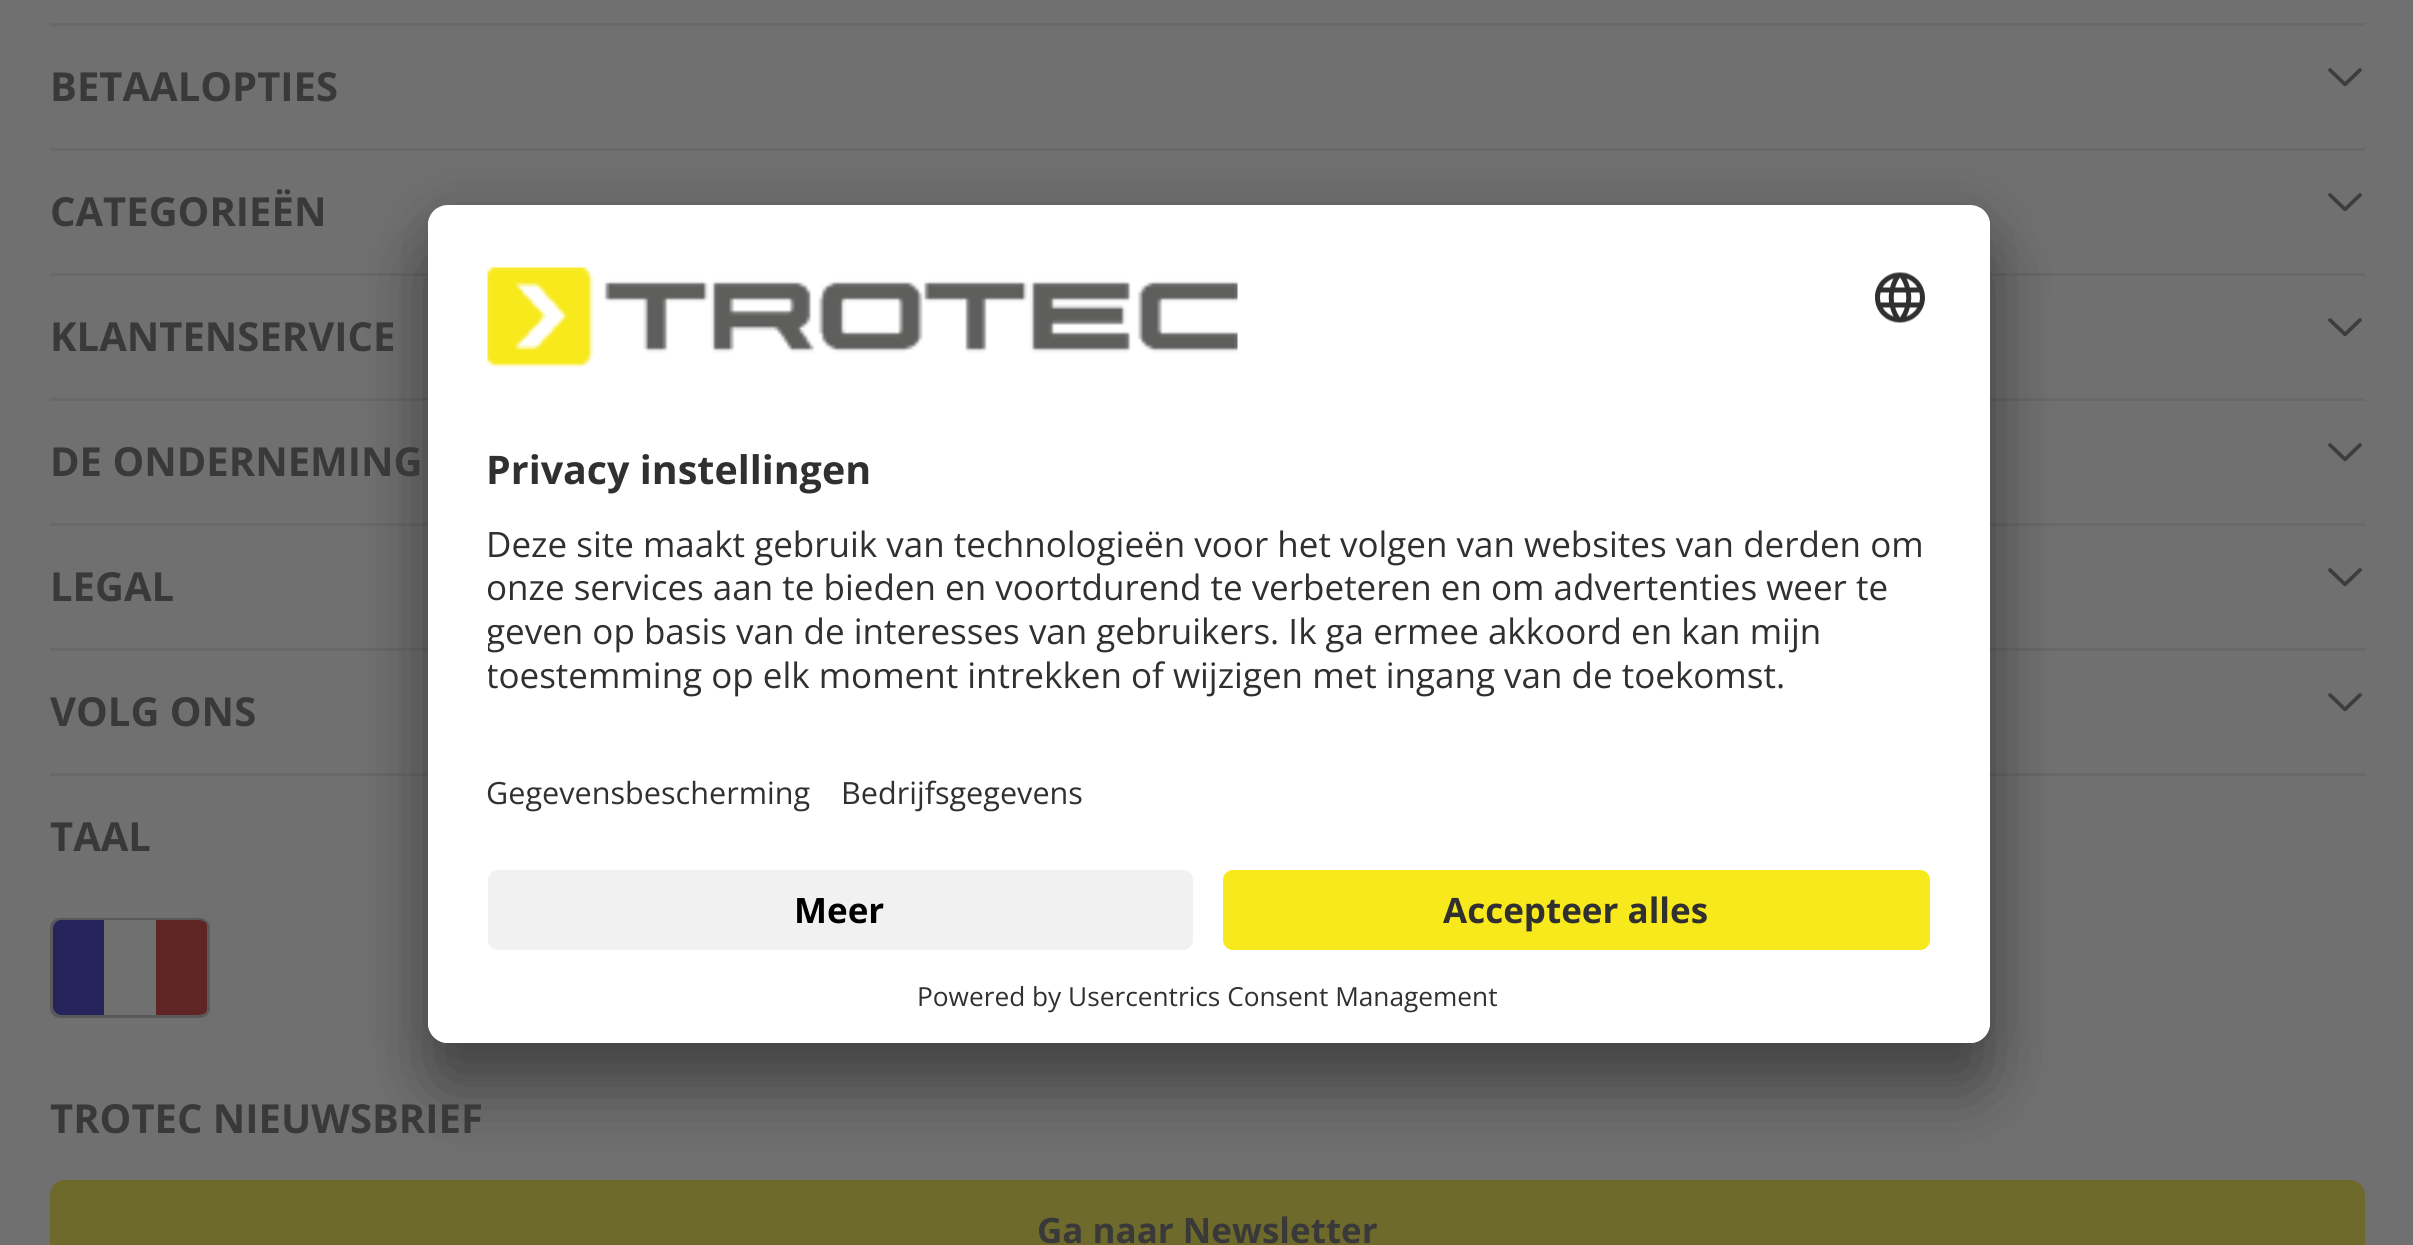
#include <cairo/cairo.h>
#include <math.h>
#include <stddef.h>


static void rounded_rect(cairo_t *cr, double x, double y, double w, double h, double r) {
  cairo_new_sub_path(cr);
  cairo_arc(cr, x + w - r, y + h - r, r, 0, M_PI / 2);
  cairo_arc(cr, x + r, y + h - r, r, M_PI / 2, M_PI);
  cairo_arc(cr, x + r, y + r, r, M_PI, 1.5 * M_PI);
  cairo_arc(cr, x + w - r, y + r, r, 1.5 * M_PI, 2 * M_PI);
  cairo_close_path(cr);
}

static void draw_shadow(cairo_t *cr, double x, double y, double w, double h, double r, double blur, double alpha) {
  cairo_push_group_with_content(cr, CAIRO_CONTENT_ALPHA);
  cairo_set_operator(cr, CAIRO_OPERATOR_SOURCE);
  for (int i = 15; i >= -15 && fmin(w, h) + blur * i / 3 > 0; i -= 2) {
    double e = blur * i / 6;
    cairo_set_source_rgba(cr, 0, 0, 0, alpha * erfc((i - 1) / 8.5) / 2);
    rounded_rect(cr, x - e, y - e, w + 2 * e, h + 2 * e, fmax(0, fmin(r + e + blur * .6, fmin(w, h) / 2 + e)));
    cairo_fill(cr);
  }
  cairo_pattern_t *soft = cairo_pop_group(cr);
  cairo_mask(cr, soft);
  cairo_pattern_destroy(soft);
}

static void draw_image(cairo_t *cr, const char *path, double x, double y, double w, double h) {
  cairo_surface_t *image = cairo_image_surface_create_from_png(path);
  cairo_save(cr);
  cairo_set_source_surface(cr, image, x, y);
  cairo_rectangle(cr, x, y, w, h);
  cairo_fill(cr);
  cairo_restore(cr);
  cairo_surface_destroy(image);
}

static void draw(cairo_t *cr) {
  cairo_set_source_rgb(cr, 112 / 255.0, 112 / 255.0, 112 / 255.0);
  cairo_paint(cr);
  cairo_set_source_rgb(cr, 105 / 255.0, 105 / 255.0, 105 / 255.0);
  cairo_rectangle(cr, 50, 23, 2315, 3);
  cairo_fill(cr);
  cairo_rectangle(cr, 50, 148, 2315, 3);
  cairo_fill(cr);
  draw_image(cr, "images/1.png", 2328, 68, 34, 19);
  cairo_rectangle(cr, 50, 273, 2315, 3);
  cairo_fill(cr);
  draw_image(cr, "images/1.png", 2328, 193, 34, 19);
  cairo_rectangle(cr, 50, 398, 2315, 3);
  cairo_fill(cr);
  draw_image(cr, "images/1.png", 2328, 318, 34, 19);
  cairo_rectangle(cr, 50, 523, 2315, 3);
  cairo_fill(cr);
  draw_image(cr, "images/1.png", 2328, 443, 34, 19);
  cairo_rectangle(cr, 50, 648, 2315, 3);
  cairo_fill(cr);
  draw_image(cr, "images/1.png", 2328, 568, 34, 19);
  cairo_rectangle(cr, 50, 773, 2315, 3);
  cairo_fill(cr);
  draw_image(cr, "images/1.png", 2328, 693, 34, 19);
  rounded_rect(cr, 51.5, 919.5, 157, 97, 8.5);
  cairo_set_source_rgb(cr, 89 / 255.0, 89 / 255.0, 89 / 255.0);
  cairo_set_line_width(cr, 3);
  cairo_stroke(cr);
  cairo_set_source_rgb(cr, 38 / 255.0, 36 / 255.0, 90 / 255.0);
  cairo_new_path(cr);
  cairo_move_to(cr, 104, 920);
  cairo_line_to(cr, 61, 920);
  cairo_curve_to(cr, 57, 920, 53, 924, 53, 928);
  cairo_line_to(cr, 53, 1007);
  cairo_curve_to(cr, 53, 1011, 56, 1014, 60, 1015);
  cairo_line_to(cr, 104, 1015);
  cairo_close_path(cr);
  cairo_fill(cr);
  cairo_set_source_rgb(cr, 112 / 255.0, 112 / 255.0, 112 / 255.0);
  cairo_rectangle(cr, 104, 920, 52, 1);
  cairo_fill(cr);
  cairo_set_source_rgb(cr, 95 / 255.0, 36 / 255.0, 36 / 255.0);
  cairo_new_path(cr);
  cairo_move_to(cr, 207, 926);
  cairo_curve_to(cr, 207, 919, 196, 920, 192, 920);
  cairo_line_to(cr, 156, 920);
  cairo_line_to(cr, 156, 1015);
  cairo_line_to(cr, 193, 1015);
  cairo_curve_to(cr, 197, 1015, 207, 1016, 207, 1009);
  cairo_close_path(cr);
  cairo_fill(cr);
  cairo_set_source_rgb(cr, 110 / 255.0, 106 / 255.0, 44 / 255.0);
  rounded_rect(cr, 50, 1180, 2315, 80, 15);
  cairo_fill(cr);
  cairo_set_source_rgb(cr, 0, 0, 0);
  draw_shadow(cr, 428, 255, 1562, 838, 20, 35, 0.3);
  draw_shadow(cr, 428, 218, 1562, 837, 20, 32.5, 0.22);
  cairo_set_source_rgb(cr, 1, 1, 1);
  rounded_rect(cr, 428, 205, 1562, 838, 20);
  cairo_fill(cr);
  cairo_save(cr);
  rounded_rect(cr, 428, 205, 1562, 838, 20);
  cairo_clip(cr);
  cairo_new_path(cr);
  cairo_move_to(cr, 448, 205);
  cairo_line_to(cr, 1970, 205);
  cairo_curve_to(cr, 1981, 205, 1990, 214, 1990, 225);
  cairo_line_to(cr, 1990, 850);
  cairo_line_to(cr, 428, 850);
  cairo_line_to(cr, 428, 225);
  cairo_curve_to(cr, 428, 214, 437, 205, 448, 205);
  cairo_close_path(cr);
  cairo_clip(cr);
  cairo_rectangle(cr, 428, 208, 1562, 642);
  cairo_fill(cr);
  cairo_restore(cr);
  draw_image(cr, "images/2.png", 487, 267, 751, 101);
  draw_image(cr, "images/3.png", 1875, 272, 50, 51);
  cairo_new_path(cr);
  cairo_move_to(cr, 428, 850);
  cairo_line_to(cr, 1990, 850);
  cairo_line_to(cr, 1990, 1023);
  cairo_curve_to(cr, 1990, 1034, 1981, 1043, 1970, 1043);
  cairo_line_to(cr, 448, 1043);
  cairo_curve_to(cr, 437, 1043, 428, 1034, 428, 1023);
  cairo_close_path(cr);
  cairo_fill(cr);
  cairo_set_source_rgb(cr, 241 / 255.0, 241 / 255.0, 242 / 255.0);
  rounded_rect(cr, 488, 870, 705, 80, 10);
  cairo_fill(cr);
  cairo_set_source_rgb(cr, 247 / 255.0, 233 / 255.0, 28 / 255.0);
  rounded_rect(cr, 1223, 870, 707, 80, 10);
  cairo_fill(cr);
  cairo_select_font_face(cr, "Open Sans", CAIRO_FONT_SLANT_NORMAL, CAIRO_FONT_WEIGHT_BOLD);
  cairo_set_font_size(cr, 40);
  cairo_set_source_rgb(cr, 57 / 255.0, 57 / 255.0, 57 / 255.0);
  cairo_move_to(cr, 50, 101);
  cairo_show_text(cr, "BETAALOPTIES");
  cairo_move_to(cr, 50, 226);
  cairo_show_text(cr, "CATEGORIEËN");
  cairo_move_to(cr, 50, 351);
  cairo_show_text(cr, "KLANTENSERVICE");
  cairo_move_to(cr, 50, 476);
  cairo_show_text(cr, "DE ONDERNEMING");
  cairo_move_to(cr, 50, 601);
  cairo_show_text(cr, "LEGAL");
  cairo_move_to(cr, 50, 726);
  cairo_show_text(cr, "VOLG ONS");
  cairo_move_to(cr, 50, 851);
  cairo_show_text(cr, "TAAL");
  cairo_move_to(cr, 50, 1133);
  cairo_show_text(cr, "TROTEC NIEUWSBRIEF");
  cairo_set_font_size(cr, 35);
  cairo_move_to(cr, 1037, 1243);
  cairo_show_text(cr, "Ga naar Newsletter");
  cairo_set_font_size(cr, 39.4);
  cairo_set_source_rgb(cr, 48 / 255.0, 48 / 255.0, 48 / 255.0);
  cairo_move_to(cr, 486, 484);
  cairo_show_text(cr, "Privacy instellingen");
  cairo_select_font_face(cr, "Open Sans", CAIRO_FONT_SLANT_NORMAL, CAIRO_FONT_WEIGHT_NORMAL);
  cairo_set_font_size(cr, 35);
  cairo_move_to(cr, 486, 557);
  cairo_show_text(cr, "Deze site maakt gebruik van technologieën voor het volgen van websites van derden om");
  cairo_move_to(cr, 486, 600);
  cairo_show_text(cr, "onze services aan te bieden en voortdurend te verbeteren en om advertenties weer te");
  cairo_save(cr);
  cairo_rectangle(cr, 488, 513, 1442, 195);
  cairo_clip(cr);
  cairo_move_to(cr, 486, 644);
  cairo_show_text(cr, "geven op basis van de interesses van gebruikers. Ik ga ermee akkoord en kan mijn");
  cairo_move_to(cr, 486, 688);
  cairo_show_text(cr, "toestemming op elk moment intrekken of wijzigen met ingang van de toekomst.");
  cairo_restore(cr);
  cairo_set_font_size(cr, 30.6);
  cairo_move_to(cr, 486, 804);
  cairo_show_text(cr, "Gegevensbescherming");
  cairo_move_to(cr, 841, 804);
  cairo_show_text(cr, "Bedrijfsgegevens");
  cairo_select_font_face(cr, "Open Sans", CAIRO_FONT_SLANT_NORMAL, CAIRO_FONT_WEIGHT_BOLD);
  cairo_set_font_size(cr, 35);
  cairo_set_source_rgb(cr, 0, 0, 0);
  cairo_move_to(cr, 794, 923);
  cairo_show_text(cr, "Meer");
  cairo_set_source_rgb(cr, 48 / 255.0, 48 / 255.0, 48 / 255.0);
  cairo_move_to(cr, 1443, 923);
  cairo_show_text(cr, "Accepteer alles");
  cairo_select_font_face(cr, "Open Sans", CAIRO_FONT_SLANT_NORMAL, CAIRO_FONT_WEIGHT_NORMAL);
  cairo_set_font_size(cr, 26.25);
  cairo_move_to(cr, 917, 1006);
  cairo_show_text(cr, "Powered by Usercentrics Consent Management");
}

int main(void) {
  cairo_surface_t *surface = cairo_image_surface_create(CAIRO_FORMAT_RGB24, 2413, 1245);
  cairo_t *cr = cairo_create(surface);
  cairo_font_options_t *options = cairo_font_options_create();
  cairo_font_options_set_hint_metrics(options, CAIRO_HINT_METRICS_OFF);
  cairo_font_options_set_hint_style(options, CAIRO_HINT_STYLE_NONE);
  cairo_set_font_options(cr, options);
  cairo_set_miter_limit(cr, 4);
  draw(cr);
  cairo_surface_write_to_png(surface, "out.png");
  cairo_font_options_destroy(options);
  cairo_destroy(cr);
  cairo_surface_destroy(surface);
  return 0;
}
